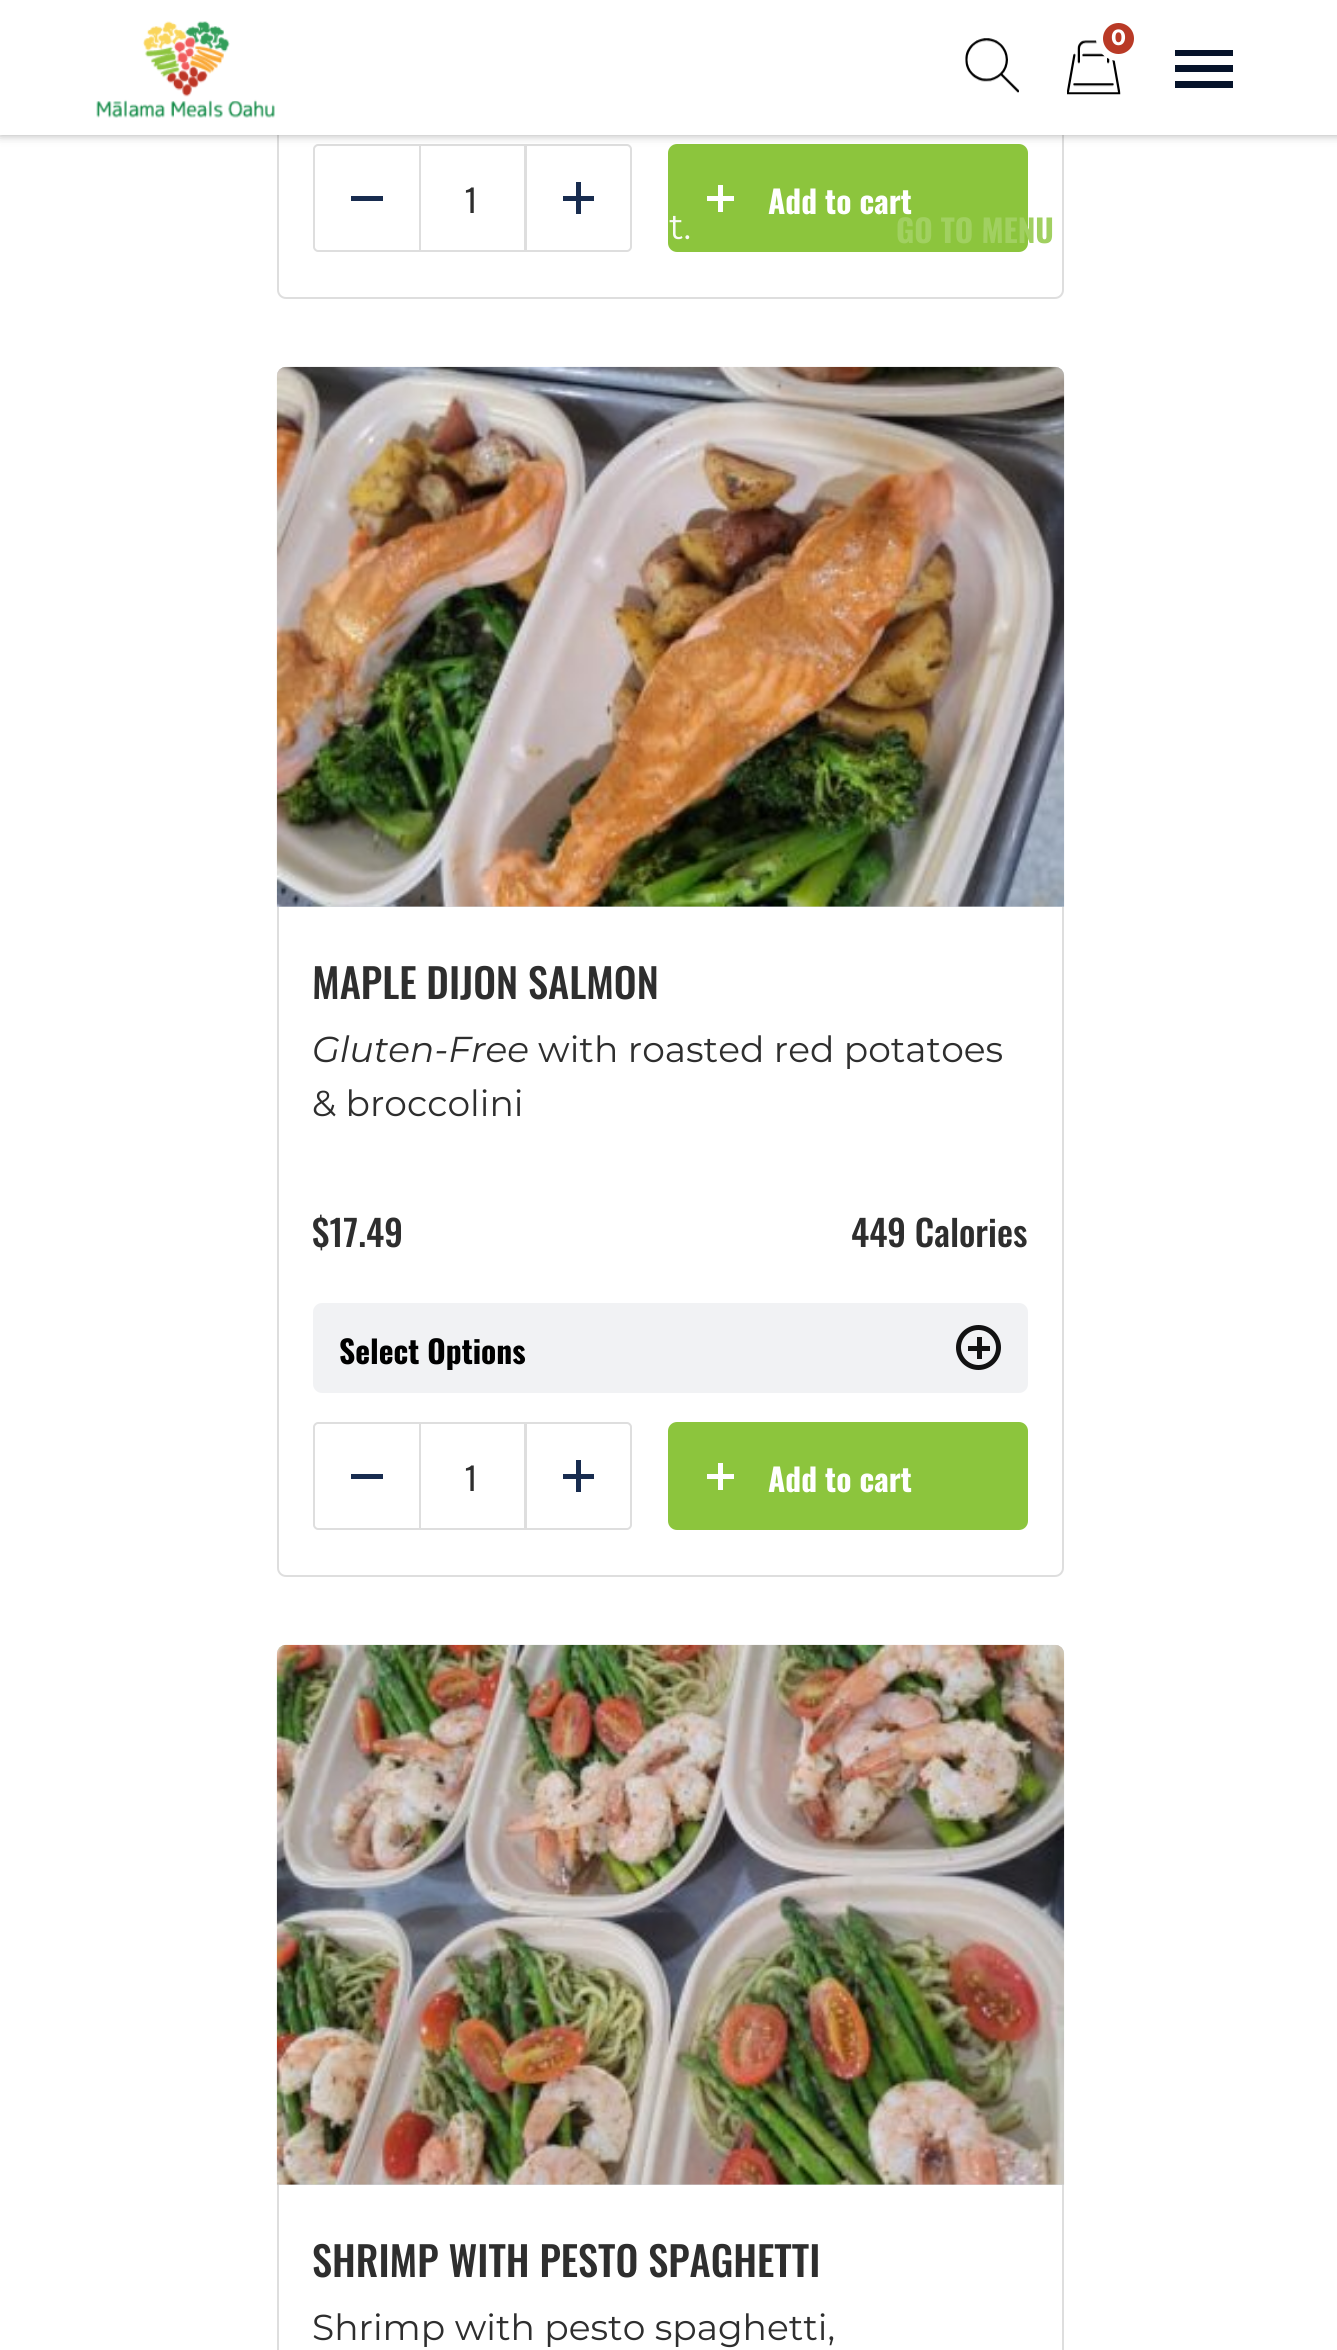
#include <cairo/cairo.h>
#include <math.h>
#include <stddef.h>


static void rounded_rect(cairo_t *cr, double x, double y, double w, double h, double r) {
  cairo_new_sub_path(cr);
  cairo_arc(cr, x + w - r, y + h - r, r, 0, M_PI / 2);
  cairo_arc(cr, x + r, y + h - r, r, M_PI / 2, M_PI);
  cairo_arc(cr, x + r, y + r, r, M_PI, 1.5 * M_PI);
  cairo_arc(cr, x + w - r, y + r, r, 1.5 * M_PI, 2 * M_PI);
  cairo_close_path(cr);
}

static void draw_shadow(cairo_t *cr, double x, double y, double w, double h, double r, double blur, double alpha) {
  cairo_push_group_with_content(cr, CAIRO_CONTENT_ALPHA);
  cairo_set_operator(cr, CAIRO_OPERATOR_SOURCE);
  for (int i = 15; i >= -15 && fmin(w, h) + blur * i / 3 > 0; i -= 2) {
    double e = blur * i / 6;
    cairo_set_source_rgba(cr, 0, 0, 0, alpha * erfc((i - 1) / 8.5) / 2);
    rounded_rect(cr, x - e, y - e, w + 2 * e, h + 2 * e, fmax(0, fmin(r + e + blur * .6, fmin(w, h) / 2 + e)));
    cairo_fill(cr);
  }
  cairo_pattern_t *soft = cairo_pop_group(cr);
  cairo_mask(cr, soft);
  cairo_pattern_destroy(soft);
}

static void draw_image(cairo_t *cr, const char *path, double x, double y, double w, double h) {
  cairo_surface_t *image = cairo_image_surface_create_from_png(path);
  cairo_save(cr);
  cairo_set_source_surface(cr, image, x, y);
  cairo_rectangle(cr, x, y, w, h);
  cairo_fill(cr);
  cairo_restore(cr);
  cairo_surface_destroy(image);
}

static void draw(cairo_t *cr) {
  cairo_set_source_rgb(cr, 1, 1, 1);
  cairo_paint(cr);
  rounded_rect(cr, 278, -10, 785, 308, 8);
  cairo_set_source_rgb(cr, 222 / 255.0, 222 / 255.0, 222 / 255.0);
  cairo_stroke(cr);
  cairo_new_path(cr);
  cairo_move_to(cr, 318, 145);
  cairo_line_to(cr, 420, 145);
  cairo_line_to(cr, 420, 251);
  cairo_line_to(cr, 318, 251);
  cairo_curve_to(cr, 316, 251, 314, 249, 314, 247);
  cairo_line_to(cr, 314, 149);
  cairo_curve_to(cr, 314, 147, 316, 145, 318, 145);
  cairo_close_path(cr);
  cairo_stroke(cr);
  cairo_new_path(cr);
  cairo_move_to(cr, 525, 145);
  cairo_line_to(cr, 627, 145);
  cairo_curve_to(cr, 629, 145, 631, 147, 631, 149);
  cairo_line_to(cr, 631, 247);
  cairo_curve_to(cr, 631, 249, 629, 251, 627, 251);
  cairo_line_to(cr, 525, 251);
  cairo_close_path(cr);
  cairo_stroke(cr);
  cairo_rectangle(cr, 420, 145, 106, 106);
  cairo_stroke(cr);
  cairo_set_source_rgb(cr, 140 / 255.0, 197 / 255.0, 61 / 255.0);
  rounded_rect(cr, 669, 145, 358, 106, 8);
  cairo_fill_preserve(cr);
  cairo_stroke(cr);
  cairo_set_source_rgb(cr, 18 / 255.0, 18 / 255.0, 18 / 255.0);
  draw_shadow(cr, 0, -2, 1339, 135, 0, 5.5, 0.5);
  cairo_set_source_rgb(cr, 1, 1, 1);
  cairo_rectangle(cr, 0, 0, 1337, 135);
  cairo_fill(cr);
  draw_image(cr, "images/1.png", 96, 21, 179, 97);
  draw_image(cr, "images/2.png", 1067, 40, 54, 55);
  cairo_set_source_rgb(cr, 185 / 255.0, 58 / 255.0, 38 / 255.0);
  cairo_arc(cr, 1118.5, 38.5, 19, 0, 2 * M_PI);
  cairo_fill_preserve(cr);
  cairo_set_source_rgb(cr, 1, 1, 1);
  cairo_set_line_width(cr, 7);
  cairo_stroke(cr);
  draw_image(cr, "images/3.png", 965, 38, 54, 55);
  cairo_save(cr);
  cairo_rectangle(cr, 1175, 50, 58, 38);
  cairo_clip(cr);
  cairo_set_source_rgb(cr, 6 / 255.0, 19 / 255.0, 42 / 255.0);
  cairo_set_fill_rule(cr, CAIRO_FILL_RULE_EVEN_ODD);
  cairo_new_path(cr);
  cairo_move_to(cr, 1174, 88);
  cairo_line_to(cr, 1233, 88);
  cairo_line_to(cr, 1233, 81);
  cairo_line_to(cr, 1174, 81);
  cairo_close_path(cr);
  cairo_move_to(cr, 1174, 72);
  cairo_line_to(cr, 1233, 72);
  cairo_line_to(cr, 1233, 65);
  cairo_line_to(cr, 1174, 65);
  cairo_close_path(cr);
  cairo_move_to(cr, 1174, 50);
  cairo_line_to(cr, 1174, 56);
  cairo_line_to(cr, 1233, 56);
  cairo_line_to(cr, 1233, 50);
  cairo_close_path(cr);
  cairo_fill(cr);
  cairo_restore(cr);
  cairo_set_source_rgb(cr, 24 / 255.0, 44 / 255.0, 79 / 255.0);
  cairo_rectangle(cr, 351, 196, 32, 5);
  cairo_fill(cr);
  cairo_rectangle(cr, 563, 196, 31, 5);
  cairo_fill(cr);
  cairo_rectangle(cr, 576, 182, 5, 32);
  cairo_fill(cr);
  cairo_set_source_rgb(cr, 1, 1, 1);
  cairo_rectangle(cr, 718, 185, 5, 27);
  cairo_fill(cr);
  cairo_rectangle(cr, 707, 196, 27, 5);
  cairo_fill(cr);
  rounded_rect(cr, 278, 368, 785, 1208, 8);
  cairo_set_source_rgb(cr, 222 / 255.0, 222 / 255.0, 222 / 255.0);
  cairo_set_line_width(cr, 2);
  cairo_stroke(cr);
  cairo_set_source_rgb(cr, 212 / 255.0, 215 / 255.0, 222 / 255.0);
  cairo_new_path(cr);
  cairo_move_to(cr, 286, 367);
  cairo_line_to(cr, 1055, 367);
  cairo_curve_to(cr, 1060, 367, 1064, 371, 1064, 376);
  cairo_line_to(cr, 1064, 907);
  cairo_line_to(cr, 277, 907);
  cairo_line_to(cr, 277, 376);
  cairo_curve_to(cr, 277, 371, 281, 367, 286, 367);
  cairo_close_path(cr);
  cairo_fill(cr);
  draw_image(cr, "images/4.png", 276, 366, 789, 541);
  cairo_set_source_rgb(cr, 241 / 255.0, 242 / 255.0, 244 / 255.0);
  rounded_rect(cr, 313, 1303, 715, 90, 9);
  cairo_fill(cr);
  cairo_arc(cr, 978.5, 1347.5, 20, 0, 2 * M_PI);
  cairo_set_source_rgb(cr, 18 / 255.0, 18 / 255.0, 18 / 255.0);
  cairo_set_line_width(cr, 5);
  cairo_stroke(cr);
  cairo_rectangle(cr, 968, 1346, 22, 5);
  cairo_fill(cr);
  cairo_rectangle(cr, 977, 1337, 5, 22);
  cairo_fill(cr);
  cairo_new_path(cr);
  cairo_move_to(cr, 318, 1423);
  cairo_line_to(cr, 420, 1423);
  cairo_line_to(cr, 420, 1529);
  cairo_line_to(cr, 318, 1529);
  cairo_curve_to(cr, 316, 1529, 314, 1527, 314, 1525);
  cairo_line_to(cr, 314, 1427);
  cairo_curve_to(cr, 314, 1425, 316, 1423, 318, 1423);
  cairo_close_path(cr);
  cairo_set_source_rgb(cr, 222 / 255.0, 222 / 255.0, 222 / 255.0);
  cairo_set_line_width(cr, 2);
  cairo_stroke(cr);
  cairo_set_source_rgb(cr, 24 / 255.0, 44 / 255.0, 79 / 255.0);
  cairo_rectangle(cr, 351, 1474, 32, 5);
  cairo_fill(cr);
  cairo_new_path(cr);
  cairo_move_to(cr, 525, 1423);
  cairo_line_to(cr, 627, 1423);
  cairo_curve_to(cr, 629, 1423, 631, 1425, 631, 1427);
  cairo_line_to(cr, 631, 1525);
  cairo_curve_to(cr, 631, 1527, 629, 1529, 627, 1529);
  cairo_line_to(cr, 525, 1529);
  cairo_close_path(cr);
  cairo_set_source_rgb(cr, 222 / 255.0, 222 / 255.0, 222 / 255.0);
  cairo_stroke(cr);
  cairo_rectangle(cr, 420, 1423, 106, 106);
  cairo_stroke(cr);
  cairo_set_source_rgb(cr, 24 / 255.0, 44 / 255.0, 79 / 255.0);
  cairo_rectangle(cr, 563, 1474, 31, 5);
  cairo_fill(cr);
  cairo_rectangle(cr, 576, 1460, 5, 32);
  cairo_fill(cr);
  cairo_set_source_rgb(cr, 140 / 255.0, 197 / 255.0, 61 / 255.0);
  rounded_rect(cr, 669, 1423, 358, 106, 8);
  cairo_fill_preserve(cr);
  cairo_stroke(cr);
  cairo_set_source_rgb(cr, 1, 1, 1);
  cairo_rectangle(cr, 718, 1463, 5, 27);
  cairo_fill(cr);
  cairo_rectangle(cr, 707, 1474, 27, 5);
  cairo_fill(cr);
  rounded_rect(cr, 278, 1646, 785, 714, 8);
  cairo_set_source_rgb(cr, 222 / 255.0, 222 / 255.0, 222 / 255.0);
  cairo_stroke(cr);
  cairo_set_source_rgb(cr, 212 / 255.0, 215 / 255.0, 222 / 255.0);
  cairo_new_path(cr);
  cairo_move_to(cr, 286, 1645);
  cairo_line_to(cr, 1055, 1645);
  cairo_curve_to(cr, 1060, 1645, 1064, 1649, 1064, 1654);
  cairo_line_to(cr, 1064, 2185);
  cairo_line_to(cr, 277, 2185);
  cairo_line_to(cr, 277, 1654);
  cairo_curve_to(cr, 277, 1649, 281, 1645, 286, 1645);
  cairo_close_path(cr);
  cairo_fill(cr);
  draw_image(cr, "images/5.png", 276, 1644, 789, 541);
  cairo_select_font_face(cr, "Montserrat", CAIRO_FONT_SLANT_NORMAL, CAIRO_FONT_WEIGHT_BOLD);
  cairo_set_font_size(cr, 22);
  cairo_set_source_rgb(cr, 1, 1, 1);
  cairo_move_to(cr, 1111, 45);
  cairo_show_text(cr, "0");
  cairo_select_font_face(cr, "Montserrat", CAIRO_FONT_SLANT_NORMAL, CAIRO_FONT_WEIGHT_NORMAL);
  cairo_set_font_size(cr, 36);
  cairo_set_source_rgb(cr, 249 / 255.0, 251 / 255.0, 245 / 255.0);
  cairo_move_to(cr, 669, 239);
  cairo_show_text(cr, "t.");
  cairo_select_font_face(cr, "Oswald", CAIRO_FONT_SLANT_NORMAL, CAIRO_FONT_WEIGHT_BOLD);
  cairo_set_font_size(cr, 31.5);
  cairo_set_source_rgb(cr, 161 / 255.0, 208 / 255.0, 97 / 255.0);
  cairo_move_to(cr, 896, 243);
  cairo_show_text(cr, "GO TO MENU");
  cairo_select_font_face(cr, "Oswald", CAIRO_FONT_SLANT_NORMAL, CAIRO_FONT_WEIGHT_NORMAL);
  cairo_set_source_rgb(cr, 46 / 255.0, 46 / 255.0, 46 / 255.0);
  cairo_move_to(cr, 465, 213);
  cairo_show_text(cr, "1");
  cairo_select_font_face(cr, "Oswald", CAIRO_FONT_SLANT_NORMAL, CAIRO_FONT_WEIGHT_BOLD);
  cairo_set_source_rgb(cr, 1, 1, 1);
  cairo_move_to(cr, 768, 214);
  cairo_show_text(cr, "Add to cart");
  cairo_select_font_face(cr, "Oswald Medium", CAIRO_FONT_SLANT_NORMAL, CAIRO_FONT_WEIGHT_NORMAL);
  cairo_set_font_size(cr, 40.5);
  cairo_set_source_rgb(cr, 46 / 255.0, 46 / 255.0, 46 / 255.0);
  cairo_move_to(cr, 312, 999);
  cairo_show_text(cr, "MAPLE DIJON SALMON");
  cairo_select_font_face(cr, "Montserrat", CAIRO_FONT_SLANT_ITALIC, CAIRO_FONT_WEIGHT_NORMAL);
  cairo_set_font_size(cr, 36);
  cairo_move_to(cr, 312, 1062);
  cairo_show_text(cr, "Gluten-Free");
  cairo_select_font_face(cr, "Montserrat", CAIRO_FONT_SLANT_NORMAL, CAIRO_FONT_WEIGHT_NORMAL);
  cairo_move_to(cr, 538, 1062);
  cairo_show_text(cr, "with roasted red potatoes");
  cairo_move_to(cr, 312, 1116);
  cairo_show_text(cr, "& broccolini");
  cairo_select_font_face(cr, "Oswald Medium", CAIRO_FONT_SLANT_NORMAL, CAIRO_FONT_WEIGHT_NORMAL);
  cairo_move_to(cr, 312, 1247);
  cairo_show_text(cr, "$17.49");
  cairo_move_to(cr, 851, 1247);
  cairo_show_text(cr, "449 Calories");
  cairo_select_font_face(cr, "Oswald", CAIRO_FONT_SLANT_NORMAL, CAIRO_FONT_WEIGHT_BOLD);
  cairo_set_font_size(cr, 31.5);
  cairo_set_source_rgb(cr, 0, 0, 0);
  cairo_move_to(cr, 339, 1364);
  cairo_show_text(cr, "Select Options");
  cairo_select_font_face(cr, "Oswald", CAIRO_FONT_SLANT_NORMAL, CAIRO_FONT_WEIGHT_NORMAL);
  cairo_set_source_rgb(cr, 46 / 255.0, 46 / 255.0, 46 / 255.0);
  cairo_move_to(cr, 465, 1491);
  cairo_show_text(cr, "1");
  cairo_select_font_face(cr, "Oswald", CAIRO_FONT_SLANT_NORMAL, CAIRO_FONT_WEIGHT_BOLD);
  cairo_set_source_rgb(cr, 1, 1, 1);
  cairo_move_to(cr, 768, 1492);
  cairo_show_text(cr, "Add to cart");
  cairo_select_font_face(cr, "Oswald Medium", CAIRO_FONT_SLANT_NORMAL, CAIRO_FONT_WEIGHT_NORMAL);
  cairo_set_font_size(cr, 40.5);
  cairo_set_source_rgb(cr, 46 / 255.0, 46 / 255.0, 46 / 255.0);
  cairo_move_to(cr, 312, 2277);
  cairo_show_text(cr, "SHRIMP WITH PESTO SPAGHETTI");
  cairo_select_font_face(cr, "Montserrat", CAIRO_FONT_SLANT_NORMAL, CAIRO_FONT_WEIGHT_NORMAL);
  cairo_set_font_size(cr, 36);
  cairo_move_to(cr, 312, 2340);
  cairo_show_text(cr, "Shrimp with pesto spaghetti,");
}

int main(void) {
  cairo_surface_t *surface = cairo_image_surface_create(CAIRO_FORMAT_RGB24, 1337, 2350);
  cairo_t *cr = cairo_create(surface);
  cairo_font_options_t *options = cairo_font_options_create();
  cairo_font_options_set_hint_metrics(options, CAIRO_HINT_METRICS_OFF);
  cairo_font_options_set_hint_style(options, CAIRO_HINT_STYLE_NONE);
  cairo_set_font_options(cr, options);
  cairo_set_miter_limit(cr, 4);
  draw(cr);
  cairo_surface_write_to_png(surface, "out.png");
  cairo_font_options_destroy(options);
  cairo_destroy(cr);
  cairo_surface_destroy(surface);
  return 0;
}
